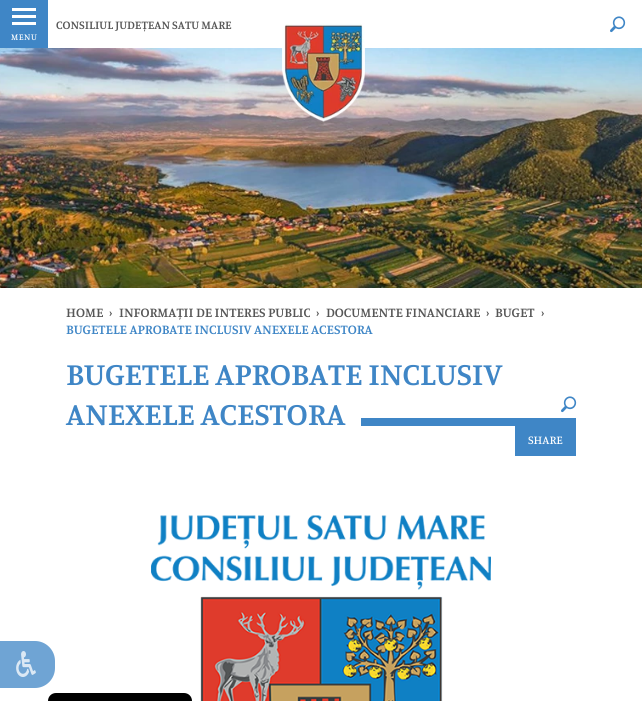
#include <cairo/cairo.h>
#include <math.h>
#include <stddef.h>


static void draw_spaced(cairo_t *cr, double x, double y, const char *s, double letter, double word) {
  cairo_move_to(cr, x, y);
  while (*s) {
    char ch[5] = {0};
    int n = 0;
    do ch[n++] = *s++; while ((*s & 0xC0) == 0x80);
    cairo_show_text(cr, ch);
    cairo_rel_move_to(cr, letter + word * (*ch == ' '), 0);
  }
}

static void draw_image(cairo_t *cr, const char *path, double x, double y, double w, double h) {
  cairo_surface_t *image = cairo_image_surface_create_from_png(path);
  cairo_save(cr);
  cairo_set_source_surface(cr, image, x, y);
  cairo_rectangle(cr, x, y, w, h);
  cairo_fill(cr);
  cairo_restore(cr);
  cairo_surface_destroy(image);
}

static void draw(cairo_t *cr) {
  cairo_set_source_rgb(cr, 1, 1, 1);
  cairo_paint(cr);
  cairo_set_source_rgb(cr, 63 / 255.0, 134 / 255.0, 198 / 255.0);
  cairo_rectangle(cr, 0, 0, 48, 48);
  cairo_fill(cr);
  cairo_set_source_rgb(cr, 1, 1, 1);
  cairo_rectangle(cr, 12, 8, 24, 3);
  cairo_fill(cr);
  cairo_rectangle(cr, 12, 15, 24, 3);
  cairo_fill(cr);
  cairo_rectangle(cr, 12, 22, 24, 3);
  cairo_fill(cr);
  draw_image(cr, "images/3.png", 0, 48, 642, 240);
  draw_image(cr, "images/1.png", 282, 23, 83, 99);
  draw_image(cr, "images/2.png", 610, 16, 16, 17);
  draw_image(cr, "images/2.png", 561, 396, 16, 17);
  cairo_set_source_rgb(cr, 63 / 255.0, 134 / 255.0, 198 / 255.0);
  cairo_rectangle(cr, 361, 418, 215, 8);
  cairo_fill(cr);
  cairo_rectangle(cr, 515, 426, 61, 30);
  cairo_fill(cr);
  draw_image(cr, "images/4.png", 151, 515, 340, 186);
  cairo_set_source_rgb(cr, 111 / 255.0, 164 / 255.0, 212 / 255.0);
  cairo_new_path(cr);
  cairo_move_to(cr, 0, 641);
  cairo_line_to(cr, 35, 641);
  cairo_curve_to(cr, 46, 641, 55, 650, 55, 661);
  cairo_line_to(cr, 55, 668);
  cairo_curve_to(cr, 55, 679, 46, 688, 35, 688);
  cairo_line_to(cr, 0, 688);
  cairo_close_path(cr);
  cairo_fill(cr);
  draw_image(cr, "images/5.png", 16, 651, 20, 26);
  cairo_set_source_rgb(cr, 0, 0, 0);
  cairo_new_path(cr);
  cairo_move_to(cr, 56, 693);
  cairo_line_to(cr, 184, 693);
  cairo_curve_to(cr, 188.5, 693, 192, 696.5, 192, 701);
  cairo_line_to(cr, 192, 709);
  cairo_line_to(cr, 48, 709);
  cairo_line_to(cr, 48, 701);
  cairo_curve_to(cr, 48, 696.5, 51.5, 693, 56, 693);
  cairo_close_path(cr);
  cairo_fill(cr);
  cairo_select_font_face(cr, "Manuale SemiBold", CAIRO_FONT_SLANT_NORMAL, CAIRO_FONT_WEIGHT_NORMAL);
  cairo_set_font_size(cr, 12);
  cairo_set_source_rgb(cr, 87 / 255.0, 87 / 255.0, 87 / 255.0);
  cairo_move_to(cr, 56, 29);
  cairo_show_text(cr, "CONSILIUL JUDEȚEAN SATU MARE");
  cairo_select_font_face(cr, "Manuale Medium", CAIRO_FONT_SLANT_NORMAL, CAIRO_FONT_WEIGHT_NORMAL);
  cairo_set_font_size(cr, 9);
  cairo_set_source_rgb(cr, 1, 1, 1);
  draw_spaced(cr, 11, 40, "MENU", 0.5, 0);
  cairo_select_font_face(cr, "Manuale SemiBold", CAIRO_FONT_SLANT_NORMAL, CAIRO_FONT_WEIGHT_NORMAL);
  cairo_set_font_size(cr, 13.6);
  cairo_set_source_rgb(cr, 87 / 255.0, 87 / 255.0, 87 / 255.0);
  cairo_move_to(cr, 66, 317);
  cairo_show_text(cr, "HOME");
  cairo_move_to(cr, 109, 317);
  cairo_show_text(cr, "›");
  cairo_move_to(cr, 119, 317);
  cairo_show_text(cr, "INFORMAȚII DE INTERES PUBLIC");
  cairo_move_to(cr, 316, 317);
  cairo_show_text(cr, "›");
  cairo_move_to(cr, 326, 317);
  cairo_show_text(cr, "DOCUMENTE FINANCIARE");
  cairo_move_to(cr, 486, 317);
  cairo_show_text(cr, "›");
  cairo_move_to(cr, 495, 317);
  cairo_show_text(cr, "BUGET");
  cairo_move_to(cr, 541, 317);
  cairo_show_text(cr, "›");
  cairo_set_source_rgb(cr, 63 / 255.0, 134 / 255.0, 198 / 255.0);
  cairo_move_to(cr, 66, 334);
  cairo_show_text(cr, "BUGETELE APROBATE INCLUSIV ANEXELE ACESTORA");
  cairo_set_font_size(cr, 32);
  cairo_move_to(cr, 66, 385);
  cairo_show_text(cr, "BUGETELE APROBATE INCLUSIV");
  cairo_move_to(cr, 66, 425);
  cairo_show_text(cr, "ANEXELE ACESTORA");
  cairo_select_font_face(cr, "Manuale Medium", CAIRO_FONT_SLANT_NORMAL, CAIRO_FONT_WEIGHT_NORMAL);
  cairo_set_font_size(cr, 12);
  cairo_set_source_rgb(cr, 1, 1, 1);
  cairo_move_to(cr, 528, 444);
  cairo_show_text(cr, "SHARE");
}

int main(void) {
  cairo_surface_t *surface = cairo_image_surface_create(CAIRO_FORMAT_RGB24, 642, 701);
  cairo_t *cr = cairo_create(surface);
  cairo_font_options_t *options = cairo_font_options_create();
  cairo_font_options_set_hint_metrics(options, CAIRO_HINT_METRICS_OFF);
  cairo_font_options_set_hint_style(options, CAIRO_HINT_STYLE_NONE);
  cairo_set_font_options(cr, options);
  cairo_set_miter_limit(cr, 4);
  draw(cr);
  cairo_surface_write_to_png(surface, "out.png");
  cairo_font_options_destroy(options);
  cairo_destroy(cr);
  cairo_surface_destroy(surface);
  return 0;
}
